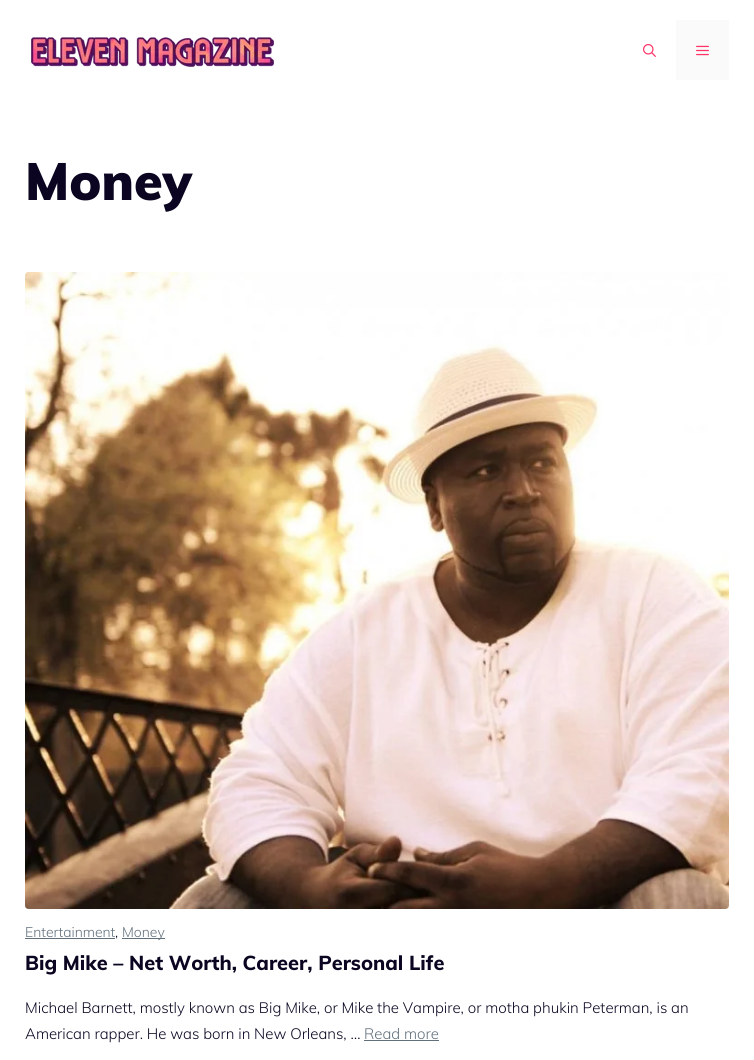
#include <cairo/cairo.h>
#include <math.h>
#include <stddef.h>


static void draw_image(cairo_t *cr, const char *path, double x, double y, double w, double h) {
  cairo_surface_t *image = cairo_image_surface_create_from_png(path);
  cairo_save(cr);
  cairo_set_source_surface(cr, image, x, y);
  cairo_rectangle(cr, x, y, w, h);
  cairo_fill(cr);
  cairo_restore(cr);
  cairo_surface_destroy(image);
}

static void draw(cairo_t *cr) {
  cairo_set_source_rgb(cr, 1, 1, 1);
  cairo_paint(cr);
  draw_image(cr, "images/1.png", 31, 37, 243, 30);
  draw_image(cr, "images/2.png", 643, 44, 13, 13);
  cairo_set_source_rgb(cr, 250 / 255.0, 250 / 255.0, 250 / 255.0);
  cairo_rectangle(cr, 676, 20, 53, 60);
  cairo_fill(cr);
  draw_image(cr, "images/3.png", 696, 45, 13, 11);
  draw_image(cr, "images/4.png", 25, 272, 704, 637);
  cairo_set_source_rgb(cr, 98 / 255.0, 112 / 255.0, 124 / 255.0);
  cairo_rectangle(cr, 25, 938, 90, 1);
  cairo_fill(cr);
  cairo_rectangle(cr, 122, 938, 43, 1);
  cairo_fill(cr);
  cairo_rectangle(cr, 364, 1040, 75, 1);
  cairo_fill(cr);
  cairo_select_font_face(cr, "Muli Black", CAIRO_FONT_SLANT_NORMAL, CAIRO_FONT_WEIGHT_NORMAL);
  cairo_set_font_size(cr, 52);
  cairo_set_source_rgb(cr, 11 / 255.0, 5 / 255.0, 33 / 255.0);
  cairo_move_to(cr, 25, 200);
  cairo_show_text(cr, "Money");
  cairo_select_font_face(cr, "Muli Light", CAIRO_FONT_SLANT_NORMAL, CAIRO_FONT_WEIGHT_NORMAL);
  cairo_set_font_size(cr, 14);
  cairo_set_source_rgb(cr, 98 / 255.0, 112 / 255.0, 124 / 255.0);
  cairo_move_to(cr, 25, 937);
  cairo_show_text(cr, "Entertainment");
  cairo_set_source_rgb(cr, 11 / 255.0, 5 / 255.0, 33 / 255.0);
  cairo_move_to(cr, 115, 937);
  cairo_show_text(cr, ",");
  cairo_set_source_rgb(cr, 98 / 255.0, 112 / 255.0, 124 / 255.0);
  cairo_move_to(cr, 122, 937);
  cairo_show_text(cr, "Money");
  cairo_select_font_face(cr, "Muli ExtraBold", CAIRO_FONT_SLANT_NORMAL, CAIRO_FONT_WEIGHT_NORMAL);
  cairo_set_font_size(cr, 20);
  cairo_set_source_rgb(cr, 11 / 255.0, 5 / 255.0, 33 / 255.0);
  cairo_move_to(cr, 25, 970);
  cairo_show_text(cr, "Big Mike – Net Worth, Career, Personal Life");
  cairo_select_font_face(cr, "Muli Light", CAIRO_FONT_SLANT_NORMAL, CAIRO_FONT_WEIGHT_NORMAL);
  cairo_set_font_size(cr, 15);
  cairo_move_to(cr, 25, 1013);
  cairo_show_text(cr, "Michael Barnett, mostly known as Big Mike, or Mike the Vampire, or motha phukin Peterman, is an");
  cairo_move_to(cr, 25, 1039);
  cairo_show_text(cr, "American rapper. He was born in New Orleans, …");
  cairo_set_source_rgb(cr, 98 / 255.0, 112 / 255.0, 124 / 255.0);
  cairo_move_to(cr, 364, 1039);
  cairo_show_text(cr, "Read more");
}

int main(void) {
  cairo_surface_t *surface = cairo_image_surface_create(CAIRO_FORMAT_RGB24, 754, 1060);
  cairo_t *cr = cairo_create(surface);
  cairo_font_options_t *options = cairo_font_options_create();
  cairo_font_options_set_hint_metrics(options, CAIRO_HINT_METRICS_OFF);
  cairo_font_options_set_hint_style(options, CAIRO_HINT_STYLE_NONE);
  cairo_set_font_options(cr, options);
  cairo_set_miter_limit(cr, 4);
  draw(cr);
  cairo_surface_write_to_png(surface, "out.png");
  cairo_font_options_destroy(options);
  cairo_destroy(cr);
  cairo_surface_destroy(surface);
  return 0;
}
